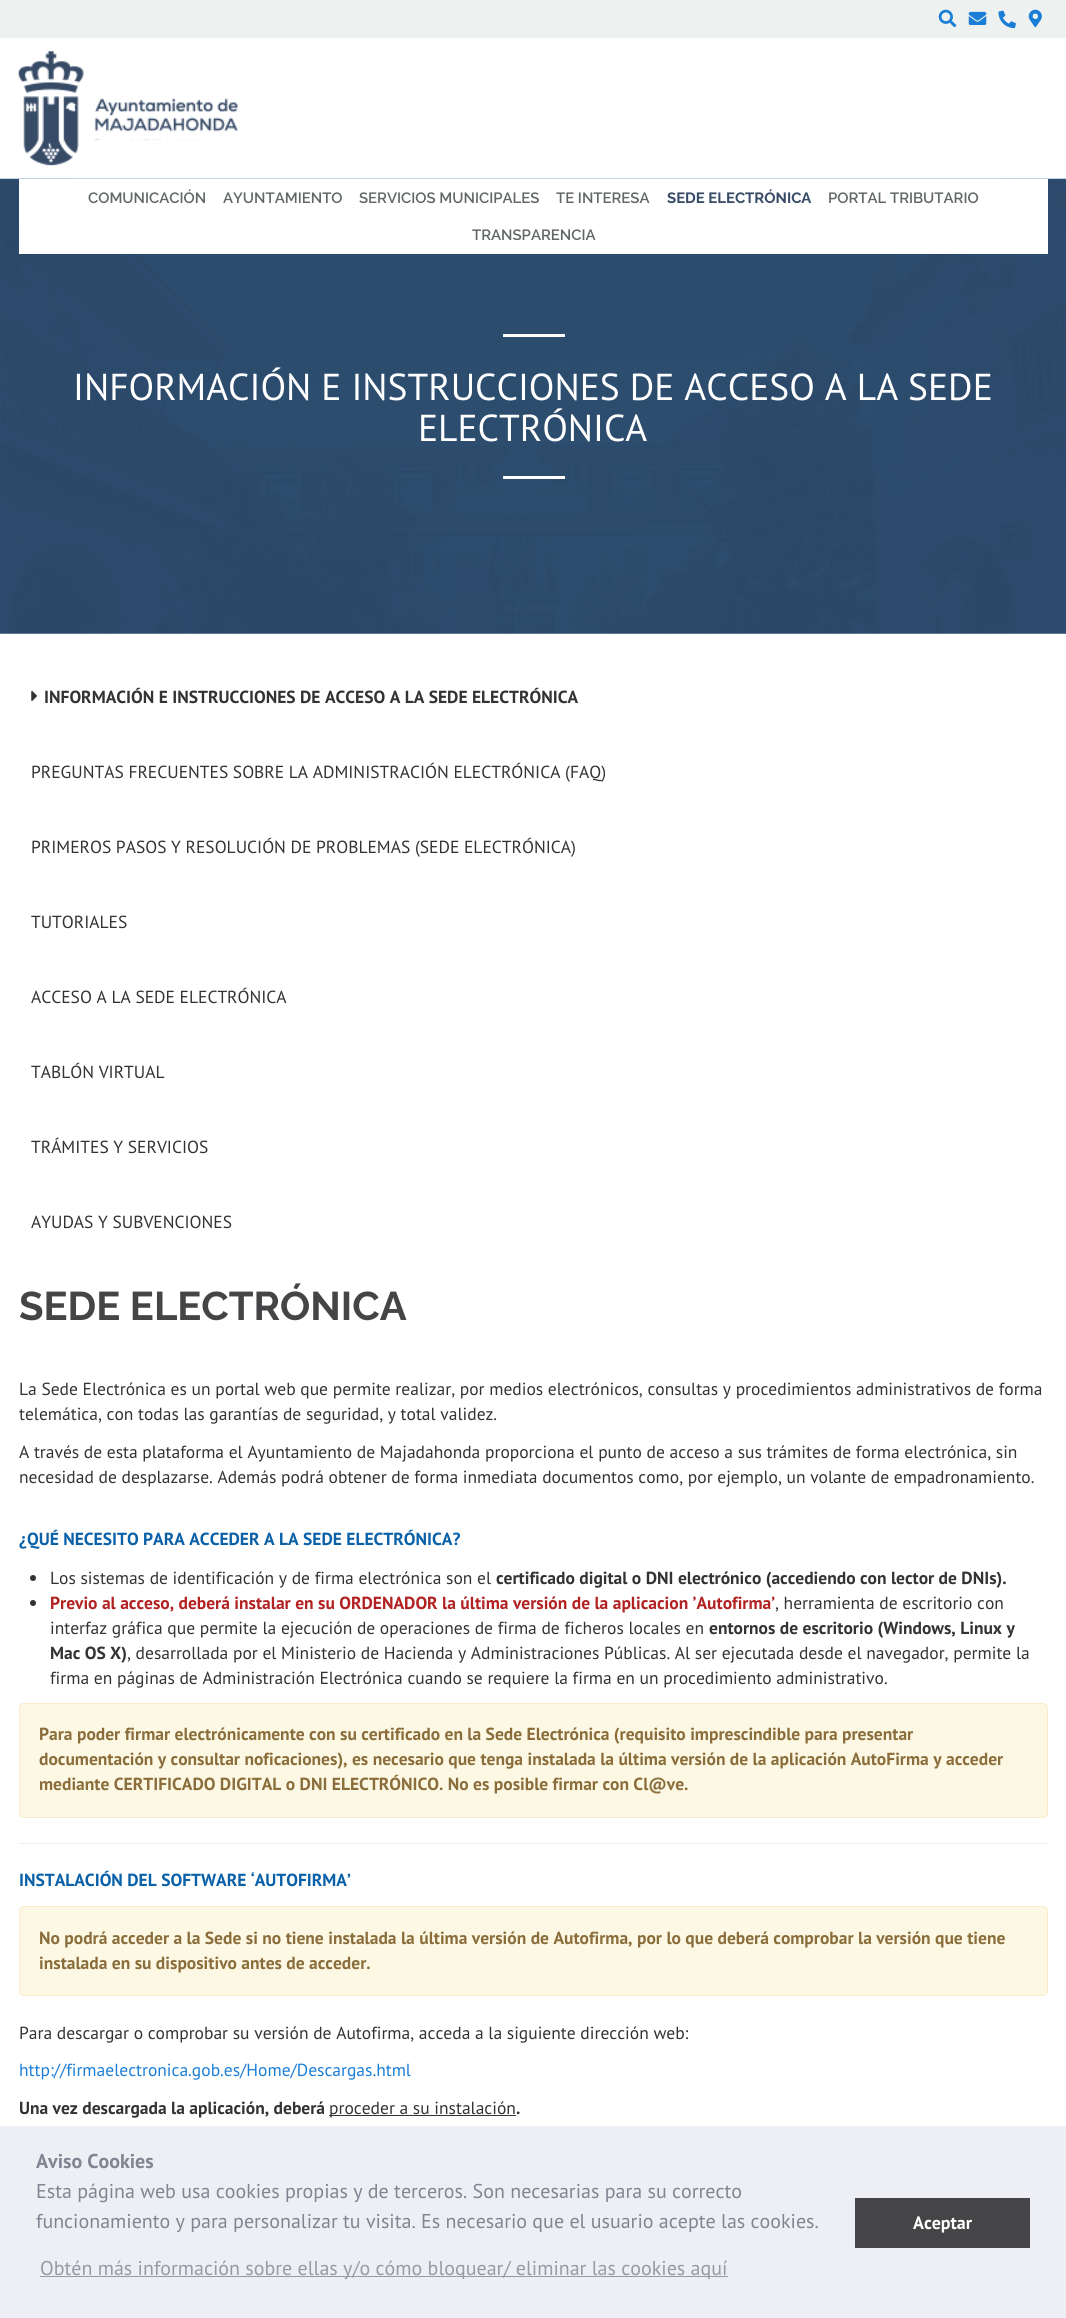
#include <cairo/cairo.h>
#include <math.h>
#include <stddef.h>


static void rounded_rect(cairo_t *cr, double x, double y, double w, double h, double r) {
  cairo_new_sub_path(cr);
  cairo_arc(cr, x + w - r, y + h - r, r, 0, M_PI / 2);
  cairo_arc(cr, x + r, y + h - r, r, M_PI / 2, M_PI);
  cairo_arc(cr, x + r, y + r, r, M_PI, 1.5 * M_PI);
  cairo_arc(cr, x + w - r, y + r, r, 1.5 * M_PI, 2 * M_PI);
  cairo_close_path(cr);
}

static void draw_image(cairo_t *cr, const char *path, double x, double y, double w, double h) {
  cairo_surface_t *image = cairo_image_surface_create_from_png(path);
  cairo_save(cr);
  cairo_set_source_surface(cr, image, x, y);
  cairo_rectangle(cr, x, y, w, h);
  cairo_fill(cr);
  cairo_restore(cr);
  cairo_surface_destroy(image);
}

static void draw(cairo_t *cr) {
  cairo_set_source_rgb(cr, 237 / 255.0, 241 / 255.0, 240 / 255.0);
  cairo_paint(cr);
  draw_image(cr, "images/1.png", 938, 9, 19, 19);
  draw_image(cr, "images/2.png", 968, 11, 19, 14);
  draw_image(cr, "images/3.png", 998, 10, 18, 19);
  draw_image(cr, "images/4.png", 1028, 9, 14, 19);
  cairo_set_source_rgb(cr, 1, 1, 1);
  cairo_rectangle(cr, 0, 38, 1066, 141);
  cairo_fill(cr);
  draw_image(cr, "images/5.png", 18, 51, 220, 115);
  cairo_rectangle(cr, 0, 633, 1066, 1493);
  cairo_fill(cr);
  draw_image(cr, "images/6.png", 0, 178, 1066, 456);
  cairo_rectangle(cr, 19, 179, 1029, 75);
  cairo_fill(cr);
  cairo_rectangle(cr, 503, 334, 62, 3);
  cairo_fill(cr);
  cairo_rectangle(cr, 503, 476, 62, 3);
  cairo_fill(cr);
  draw_image(cr, "images/7.png", 31, 690, 6, 11);
  cairo_set_source_rgb(cr, 52 / 255.0, 52 / 255.0, 52 / 255.0);
  cairo_arc(cr, 33, 1578, 3, 0, 2 * M_PI);
  cairo_fill(cr);
  cairo_arc(cr, 33, 1603, 3, 0, 2 * M_PI);
  cairo_fill(cr);
  cairo_set_source_rgb(cr, 252 / 255.0, 248 / 255.0, 227 / 255.0);
  rounded_rect(cr, 19.5, 1703.5, 1028, 114, 4.5);
  cairo_fill_preserve(cr);
  cairo_set_source_rgb(cr, 250 / 255.0, 235 / 255.0, 204 / 255.0);
  cairo_set_line_width(cr, 1);
  cairo_stroke(cr);
  cairo_set_source_rgb(cr, 238 / 255.0, 238 / 255.0, 238 / 255.0);
  cairo_rectangle(cr, 19, 1843, 1029, 1);
  cairo_fill(cr);
  cairo_set_source_rgb(cr, 252 / 255.0, 248 / 255.0, 227 / 255.0);
  rounded_rect(cr, 19.5, 1906.5, 1028, 89, 4.5);
  cairo_fill_preserve(cr);
  cairo_set_source_rgb(cr, 250 / 255.0, 235 / 255.0, 204 / 255.0);
  cairo_stroke(cr);
  cairo_set_source_rgb(cr, 52 / 255.0, 52 / 255.0, 52 / 255.0);
  cairo_rectangle(cr, 329, 2115, 187, 1);
  cairo_fill(cr);
  cairo_set_source_rgb(cr, 237 / 255.0, 239 / 255.0, 245 / 255.0);
  cairo_rectangle(cr, 0, 2126, 1066, 192);
  cairo_fill(cr);
  cairo_set_source_rgb(cr, 152 / 255.0, 153 / 255.0, 165 / 255.0);
  cairo_rectangle(cr, 40, 2276, 688, 1);
  cairo_fill(cr);
  cairo_set_source_rgb(cr, 69 / 255.0, 69 / 255.0, 72 / 255.0);
  cairo_rectangle(cr, 855, 2198, 175, 50);
  cairo_fill(cr);
  cairo_select_font_face(cr, "Raleway SemiBold", CAIRO_FONT_SLANT_NORMAL, CAIRO_FONT_WEIGHT_NORMAL);
  cairo_set_font_size(cr, 14.9);
  cairo_set_source_rgb(cr, 97 / 255.0, 103 / 255.0, 104 / 255.0);
  cairo_move_to(cr, 88, 203);
  cairo_show_text(cr, "COMUNICACIÓN");
  cairo_move_to(cr, 223, 203);
  cairo_show_text(cr, "AYUNTAMIENTO");
  cairo_move_to(cr, 359, 203);
  cairo_show_text(cr, "SERVICIOS MUNICIPALES");
  cairo_move_to(cr, 556, 203);
  cairo_show_text(cr, "TE INTERESA");
  cairo_select_font_face(cr, "Raleway", CAIRO_FONT_SLANT_NORMAL, CAIRO_FONT_WEIGHT_BOLD);
  cairo_set_source_rgb(cr, 55 / 255.0, 75 / 255.0, 103 / 255.0);
  cairo_move_to(cr, 667, 203);
  cairo_show_text(cr, "SEDE ELECTRÓNICA");
  cairo_select_font_face(cr, "Raleway SemiBold", CAIRO_FONT_SLANT_NORMAL, CAIRO_FONT_WEIGHT_NORMAL);
  cairo_set_source_rgb(cr, 97 / 255.0, 103 / 255.0, 104 / 255.0);
  cairo_move_to(cr, 828, 203);
  cairo_show_text(cr, "PORTAL TRIBUTARIO");
  cairo_move_to(cr, 472, 240);
  cairo_show_text(cr, "TRANSPARENCIA");
  cairo_select_font_face(cr, "PT Sans", CAIRO_FONT_SLANT_NORMAL, CAIRO_FONT_WEIGHT_NORMAL);
  cairo_set_font_size(cr, 37.5);
  cairo_set_source_rgb(cr, 1, 1, 1);
  cairo_move_to(cr, 73, 400);
  cairo_show_text(cr, "INFORMACIÓN E INSTRUCCIONES DE ACCESO A LA SEDE");
  cairo_move_to(cr, 418, 441);
  cairo_show_text(cr, "ELECTRÓNICA");
  cairo_select_font_face(cr, "PT Sans", CAIRO_FONT_SLANT_NORMAL, CAIRO_FONT_WEIGHT_BOLD);
  cairo_set_font_size(cr, 17.5);
  cairo_set_source_rgb(cr, 51 / 255.0, 51 / 255.0, 51 / 255.0);
  cairo_move_to(cr, 44, 703);
  cairo_show_text(cr, "INFORMACIÓN E INSTRUCCIONES DE ACCESO A LA SEDE ELECTRÓNICA");
  cairo_select_font_face(cr, "PT Sans", CAIRO_FONT_SLANT_NORMAL, CAIRO_FONT_WEIGHT_NORMAL);
  cairo_move_to(cr, 31, 778);
  cairo_show_text(cr, "PREGUNTAS FRECUENTES SOBRE LA ADMINISTRACIÓN ELECTRÓNICA (FAQ)");
  cairo_move_to(cr, 31, 853);
  cairo_show_text(cr, "PRIMEROS PASOS Y RESOLUCIÓN DE PROBLEMAS (SEDE ELECTRÓNICA)");
  cairo_move_to(cr, 31, 928);
  cairo_show_text(cr, "TUTORIALES");
  cairo_move_to(cr, 31, 1003);
  cairo_show_text(cr, "ACCESO A LA SEDE ELECTRÓNICA");
  cairo_move_to(cr, 31, 1078);
  cairo_show_text(cr, "TABLÓN VIRTUAL");
  cairo_move_to(cr, 31, 1153);
  cairo_show_text(cr, "TRÁMITES Y SERVICIOS");
  cairo_move_to(cr, 31, 1228);
  cairo_show_text(cr, "AYUDAS Y SUBVENCIONES");
  cairo_select_font_face(cr, "Raleway", CAIRO_FONT_SLANT_NORMAL, CAIRO_FONT_WEIGHT_BOLD);
  cairo_set_font_size(cr, 40);
  cairo_set_source_rgb(cr, 69 / 255.0, 69 / 255.0, 72 / 255.0);
  cairo_move_to(cr, 19, 1320);
  cairo_show_text(cr, "SEDE ELECTRÓNICA");
  cairo_select_font_face(cr, "PT Sans", CAIRO_FONT_SLANT_NORMAL, CAIRO_FONT_WEIGHT_NORMAL);
  cairo_set_font_size(cr, 17.5);
  cairo_set_source_rgb(cr, 51 / 255.0, 51 / 255.0, 51 / 255.0);
  cairo_move_to(cr, 19, 1395);
  cairo_show_text(cr, "La Sede Electrónica es un portal web que permite realizar, por medios electrónicos, consultas y procedimientos administrativos de forma");
  cairo_move_to(cr, 19, 1420);
  cairo_show_text(cr, "telemática, con todas las garantías de seguridad, y total validez.");
  cairo_move_to(cr, 19, 1458);
  cairo_show_text(cr, "A través de esta plataforma el Ayuntamiento de Majadahonda proporciona el punto de acceso a sus trámites de forma electrónica, sin");
  cairo_move_to(cr, 19, 1483);
  cairo_show_text(cr, "necesidad de desplazarse. Además podrá obtener de forma inmediata documentos como, por ejemplo, un volante de empadronamiento.");
  cairo_select_font_face(cr, "PT Sans", CAIRO_FONT_SLANT_NORMAL, CAIRO_FONT_WEIGHT_BOLD);
  cairo_set_source_rgb(cr, 10 / 255.0, 97 / 255.0, 168 / 255.0);
  cairo_move_to(cr, 19, 1545);
  cairo_show_text(cr, "¿QUÉ NECESITO PARA ACCEDER A LA SEDE ELECTRÓNICA?");
  cairo_select_font_face(cr, "PT Sans", CAIRO_FONT_SLANT_NORMAL, CAIRO_FONT_WEIGHT_NORMAL);
  cairo_set_source_rgb(cr, 51 / 255.0, 51 / 255.0, 51 / 255.0);
  cairo_move_to(cr, 50, 1584);
  cairo_show_text(cr, "Los sistemas de identificación y de firma electrónica son el");
  cairo_select_font_face(cr, "PT Sans", CAIRO_FONT_SLANT_NORMAL, CAIRO_FONT_WEIGHT_BOLD);
  cairo_move_to(cr, 496, 1584);
  cairo_show_text(cr, "certificado digital o DNI electrónico (accediendo con lector de DNIs).");
  cairo_set_source_rgb(cr, 178 / 255.0, 34 / 255.0, 34 / 255.0);
  cairo_move_to(cr, 50, 1609);
  cairo_show_text(cr, "Previo al acceso, deberá instalar en su ORDENADOR la última versión de la aplicacion ’Autofirma’");
  cairo_select_font_face(cr, "PT Sans", CAIRO_FONT_SLANT_NORMAL, CAIRO_FONT_WEIGHT_NORMAL);
  cairo_set_source_rgb(cr, 51 / 255.0, 51 / 255.0, 51 / 255.0);
  cairo_move_to(cr, 775, 1609);
  cairo_show_text(cr, ", herramienta de escritorio con");
  cairo_move_to(cr, 50, 1634);
  cairo_show_text(cr, "interfaz gráfica que permite la ejecución de operaciones de firma de ficheros locales en");
  cairo_select_font_face(cr, "PT Sans", CAIRO_FONT_SLANT_NORMAL, CAIRO_FONT_WEIGHT_BOLD);
  cairo_move_to(cr, 709, 1634);
  cairo_show_text(cr, "entornos de escritorio (Windows, Linux y");
  cairo_move_to(cr, 50, 1659);
  cairo_show_text(cr, "Mac OS X)");
  cairo_select_font_face(cr, "PT Sans", CAIRO_FONT_SLANT_NORMAL, CAIRO_FONT_WEIGHT_NORMAL);
  cairo_move_to(cr, 127, 1659);
  cairo_show_text(cr, ", desarrollada por el Ministerio de Hacienda y Administraciones Públicas. Al ser ejecutada desde el navegador, permite la");
  cairo_move_to(cr, 50, 1684);
  cairo_show_text(cr, "firma en páginas de Administración Electrónica cuando se requiere la firma en un procedimiento administrativo.");
  cairo_select_font_face(cr, "PT Sans", CAIRO_FONT_SLANT_NORMAL, CAIRO_FONT_WEIGHT_BOLD);
  cairo_set_source_rgb(cr, 138 / 255.0, 109 / 255.0, 59 / 255.0);
  cairo_move_to(cr, 39, 1740);
  cairo_show_text(cr, "Para poder firmar electrónicamente con su certificado en la Sede Electrónica (requisito imprescindible para presentar");
  cairo_move_to(cr, 39, 1765);
  cairo_show_text(cr, "documentación y consultar noficaciones), es necesario que tenga instalada la última versión de la aplicación AutoFirma y acceder");
  cairo_move_to(cr, 39, 1790);
  cairo_show_text(cr, "mediante CERTIFICADO DIGITAL o DNI ELECTRÓNICO. No es posible firmar con Cl@ve.");
  cairo_set_source_rgb(cr, 10 / 255.0, 97 / 255.0, 168 / 255.0);
  cairo_move_to(cr, 19, 1886);
  cairo_show_text(cr, "INSTALACIÓN DEL SOFTWARE ‘AUTOFIRMA’");
  cairo_set_source_rgb(cr, 138 / 255.0, 109 / 255.0, 59 / 255.0);
  cairo_move_to(cr, 39, 1944);
  cairo_show_text(cr, "No podrá acceder a la Sede si no tiene instalada la última versión de Autofirma, por lo que deberá comprobar la versión que tiene");
  cairo_move_to(cr, 39, 1969);
  cairo_show_text(cr, "instalada en su dispositivo antes de acceder.");
  cairo_select_font_face(cr, "PT Sans", CAIRO_FONT_SLANT_NORMAL, CAIRO_FONT_WEIGHT_NORMAL);
  cairo_set_source_rgb(cr, 51 / 255.0, 51 / 255.0, 51 / 255.0);
  cairo_move_to(cr, 19, 2039);
  cairo_show_text(cr, "Para descargar o comprobar su versión de Autofirma, acceda a la siguiente dirección web:");
  cairo_set_source_rgb(cr, 26 / 255.0, 126 / 255.0, 215 / 255.0);
  cairo_move_to(cr, 19, 2076);
  cairo_show_text(cr, "http://firmaelectronica.gob.es/Home/Descargas.html");
  cairo_select_font_face(cr, "PT Sans", CAIRO_FONT_SLANT_NORMAL, CAIRO_FONT_WEIGHT_BOLD);
  cairo_set_source_rgb(cr, 51 / 255.0, 51 / 255.0, 51 / 255.0);
  cairo_move_to(cr, 19, 2114);
  cairo_show_text(cr, "Una vez descargada la aplicación, deberá");
  cairo_select_font_face(cr, "PT Sans", CAIRO_FONT_SLANT_NORMAL, CAIRO_FONT_WEIGHT_NORMAL);
  cairo_move_to(cr, 329, 2114);
  cairo_show_text(cr, "proceder a su instalación");
  cairo_select_font_face(cr, "PT Sans", CAIRO_FONT_SLANT_NORMAL, CAIRO_FONT_WEIGHT_BOLD);
  cairo_move_to(cr, 516, 2114);
  cairo_show_text(cr, ".");
  cairo_set_font_size(cr, 20);
  cairo_set_source_rgb(cr, 131 / 255.0, 131 / 255.0, 145 / 255.0);
  cairo_move_to(cr, 36, 2168);
  cairo_show_text(cr, "Aviso Cookies");
  cairo_select_font_face(cr, "PT Sans", CAIRO_FONT_SLANT_NORMAL, CAIRO_FONT_WEIGHT_NORMAL);
  cairo_move_to(cr, 36, 2198);
  cairo_show_text(cr, "Esta página web usa cookies propias y de terceros. Son necesarias para su correcto");
  cairo_move_to(cr, 36, 2228);
  cairo_show_text(cr, "funcionamiento y para personalizar tu visita. Es necesario que el usuario acepte las cookies.");
  cairo_set_source_rgb(cr, 152 / 255.0, 153 / 255.0, 165 / 255.0);
  cairo_move_to(cr, 40, 2275);
  cairo_show_text(cr, "Obtén más información sobre ellas y/o cómo bloquear/ eliminar las cookies aquí");
  cairo_select_font_face(cr, "PT Sans", CAIRO_FONT_SLANT_NORMAL, CAIRO_FONT_WEIGHT_BOLD);
  cairo_set_font_size(cr, 18);
  cairo_set_source_rgb(cr, 1, 1, 1);
  cairo_move_to(cr, 913, 2229);
  cairo_show_text(cr, "Aceptar");
}

int main(void) {
  cairo_surface_t *surface = cairo_image_surface_create(CAIRO_FORMAT_RGB24, 1066, 2318);
  cairo_t *cr = cairo_create(surface);
  cairo_font_options_t *options = cairo_font_options_create();
  cairo_font_options_set_hint_metrics(options, CAIRO_HINT_METRICS_OFF);
  cairo_font_options_set_hint_style(options, CAIRO_HINT_STYLE_NONE);
  cairo_set_font_options(cr, options);
  cairo_set_miter_limit(cr, 4);
  draw(cr);
  cairo_surface_write_to_png(surface, "out.png");
  cairo_font_options_destroy(options);
  cairo_destroy(cr);
  cairo_surface_destroy(surface);
  return 0;
}
